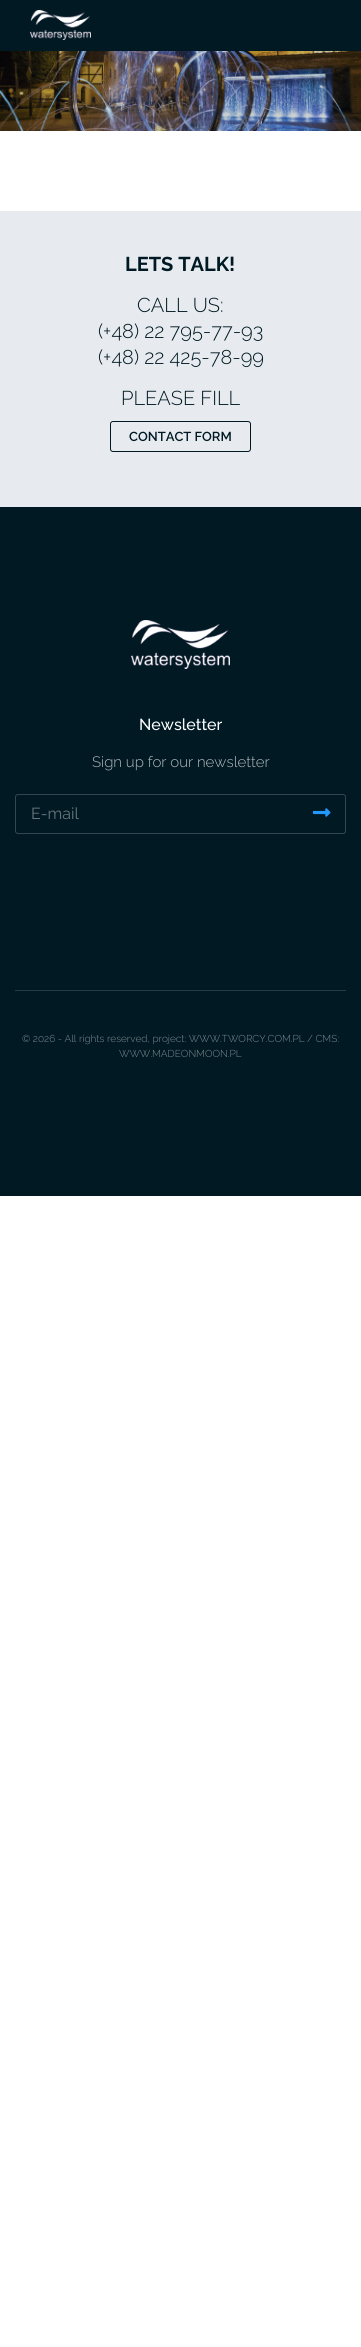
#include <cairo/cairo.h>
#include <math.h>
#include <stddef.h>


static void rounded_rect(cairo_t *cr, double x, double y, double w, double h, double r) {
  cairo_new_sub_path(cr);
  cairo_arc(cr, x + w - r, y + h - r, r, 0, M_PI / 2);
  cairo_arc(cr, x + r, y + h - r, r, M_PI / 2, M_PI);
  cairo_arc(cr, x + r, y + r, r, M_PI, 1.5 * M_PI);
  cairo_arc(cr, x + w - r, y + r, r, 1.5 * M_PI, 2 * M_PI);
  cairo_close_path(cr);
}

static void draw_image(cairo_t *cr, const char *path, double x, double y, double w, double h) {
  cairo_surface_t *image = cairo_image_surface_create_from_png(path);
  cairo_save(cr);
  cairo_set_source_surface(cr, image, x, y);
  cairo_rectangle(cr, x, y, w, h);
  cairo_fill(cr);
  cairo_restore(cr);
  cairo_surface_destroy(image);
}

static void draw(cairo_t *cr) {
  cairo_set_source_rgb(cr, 1, 1, 1);
  cairo_paint(cr);
  cairo_set_source_rgb(cr, 0, 25 / 255.0, 35 / 255.0);
  cairo_rectangle(cr, 0, 0, 361, 51);
  cairo_fill(cr);
  draw_image(cr, "images/1.png", 30, 10, 61, 30);
  draw_image(cr, "images/2.png", 0, 51, 361, 80);
  cairo_set_source_rgb(cr, 231 / 255.0, 235 / 255.0, 239 / 255.0);
  cairo_rectangle(cr, 0, 211, 361, 296);
  cairo_fill(cr);
  rounded_rect(cr, 110.5, 421.5, 140, 30, 2.5);
  cairo_set_source_rgb(cr, 0, 25 / 255.0, 35 / 255.0);
  cairo_set_line_width(cr, 1);
  cairo_stroke(cr);
  cairo_rectangle(cr, 0, 507, 361, 689);
  cairo_fill(cr);
  draw_image(cr, "images/3.png", 131, 620, 99, 49);
  rounded_rect(cr, 15.5, 794.5, 330, 39, 2.5);
  cairo_set_source_rgb(cr, 51 / 255.0, 71 / 255.0, 79 / 255.0);
  cairo_stroke(cr);
  draw_image(cr, "images/4.png", 313, 808, 18, 9);
  cairo_set_source_rgb(cr, 38 / 255.0, 60 / 255.0, 68 / 255.0);
  cairo_rectangle(cr, 15, 990, 331, 1);
  cairo_fill(cr);
  cairo_select_font_face(cr, "Raleway", CAIRO_FONT_SLANT_NORMAL, CAIRO_FONT_WEIGHT_BOLD);
  cairo_set_font_size(cr, 20);
  cairo_set_source_rgb(cr, 0, 25 / 255.0, 35 / 255.0);
  cairo_move_to(cr, 125, 271);
  cairo_show_text(cr, "LETS TALK!");
  cairo_select_font_face(cr, "Raleway Light", CAIRO_FONT_SLANT_NORMAL, CAIRO_FONT_WEIGHT_NORMAL);
  cairo_move_to(cr, 137, 312);
  cairo_show_text(cr, "CALL US:");
  cairo_move_to(cr, 98, 338);
  cairo_show_text(cr, "(+48) 22 795-77-93");
  cairo_move_to(cr, 98, 364);
  cairo_show_text(cr, "(+48) 22 425-78-99");
  cairo_move_to(cr, 121, 405);
  cairo_show_text(cr, "PLEASE FILL");
  cairo_select_font_face(cr, "Raleway SemiBold", CAIRO_FONT_SLANT_NORMAL, CAIRO_FONT_WEIGHT_NORMAL);
  cairo_set_font_size(cr, 13);
  cairo_move_to(cr, 129, 441);
  cairo_show_text(cr, "CONTACT FORM");
  cairo_select_font_face(cr, "Raleway Medium", CAIRO_FONT_SLANT_NORMAL, CAIRO_FONT_WEIGHT_NORMAL);
  cairo_set_font_size(cr, 16);
  cairo_set_source_rgb(cr, 1, 1, 1);
  cairo_move_to(cr, 139, 730);
  cairo_show_text(cr, "Newsletter");
  cairo_select_font_face(cr, "Raleway Light", CAIRO_FONT_SLANT_NORMAL, CAIRO_FONT_WEIGHT_NORMAL);
  cairo_set_font_size(cr, 15);
  cairo_set_source_rgb(cr, 179 / 255.0, 186 / 255.0, 189 / 255.0);
  cairo_move_to(cr, 92, 767);
  cairo_show_text(cr, "Sign up for our newsletter");
  cairo_select_font_face(cr, "Raleway", CAIRO_FONT_SLANT_NORMAL, CAIRO_FONT_WEIGHT_NORMAL);
  cairo_set_font_size(cr, 16);
  cairo_set_source_rgb(cr, 102 / 255.0, 117 / 255.0, 123 / 255.0);
  cairo_move_to(cr, 31, 819);
  cairo_show_text(cr, "E-mail");
  cairo_select_font_face(cr, "Raleway Light", CAIRO_FONT_SLANT_NORMAL, CAIRO_FONT_WEIGHT_NORMAL);
  cairo_set_font_size(cr, 10);
  cairo_set_source_rgb(cr, 128 / 255.0, 140 / 255.0, 145 / 255.0);
  cairo_move_to(cr, 22, 1042);
  cairo_show_text(cr, "© 2026 - All rights reserved, project: WWW.TWORCY.COM.PL / CMS:");
  cairo_move_to(cr, 119, 1057);
  cairo_show_text(cr, "WWW.MADEONMOON.PL");
}

int main(void) {
  cairo_surface_t *surface = cairo_image_surface_create(CAIRO_FORMAT_RGB24, 361, 2347);
  cairo_t *cr = cairo_create(surface);
  cairo_font_options_t *options = cairo_font_options_create();
  cairo_font_options_set_hint_metrics(options, CAIRO_HINT_METRICS_OFF);
  cairo_font_options_set_hint_style(options, CAIRO_HINT_STYLE_NONE);
  cairo_set_font_options(cr, options);
  cairo_set_miter_limit(cr, 4);
  draw(cr);
  cairo_surface_write_to_png(surface, "out.png");
  cairo_font_options_destroy(options);
  cairo_destroy(cr);
  cairo_surface_destroy(surface);
  return 0;
}
